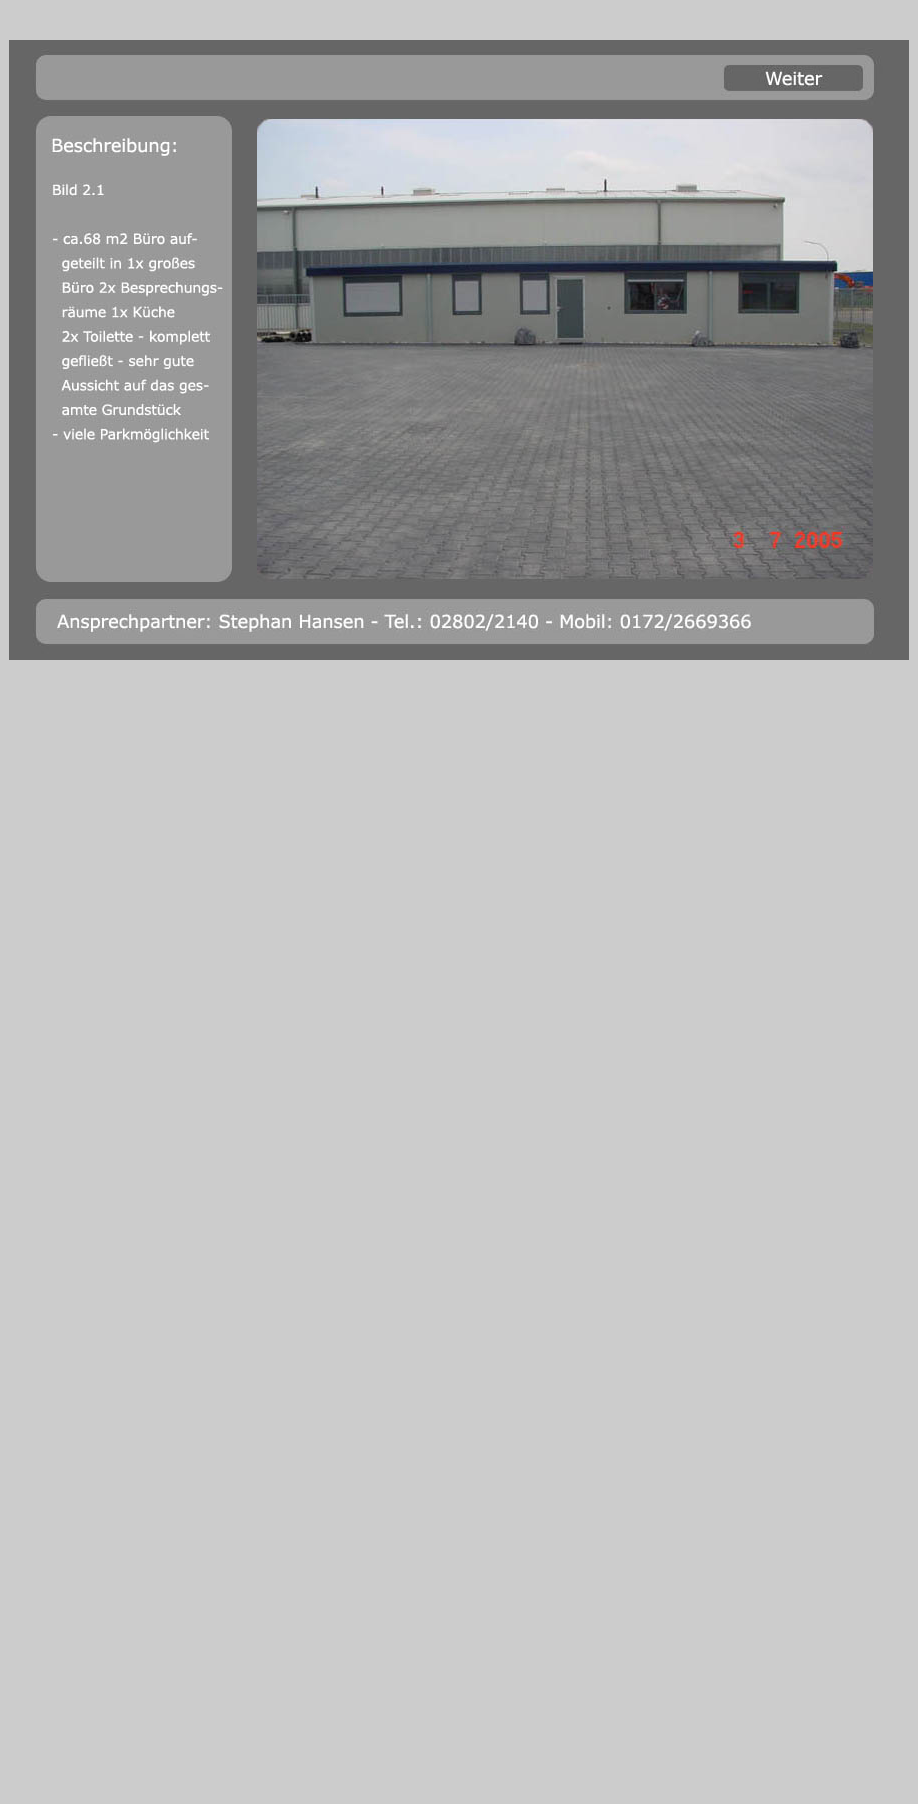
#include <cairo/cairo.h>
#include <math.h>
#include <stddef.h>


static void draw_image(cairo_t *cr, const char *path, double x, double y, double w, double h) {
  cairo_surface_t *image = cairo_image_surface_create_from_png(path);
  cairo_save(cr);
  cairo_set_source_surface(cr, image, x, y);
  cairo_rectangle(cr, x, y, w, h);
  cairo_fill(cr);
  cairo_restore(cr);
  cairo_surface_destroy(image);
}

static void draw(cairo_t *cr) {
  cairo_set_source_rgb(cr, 204 / 255.0, 204 / 255.0, 204 / 255.0);
  cairo_paint(cr);
  draw_image(cr, "images/1.png", 9, 40, 900, 26);
  draw_image(cr, "images/2.png", 9, 66, 716, 44);
  draw_image(cr, "images/3.png", 725, 66, 136, 24);
  draw_image(cr, "images/4.png", 861, 66, 48, 44);
  draw_image(cr, "images/5.png", 725, 90, 136, 20);
  draw_image(cr, "images/6.png", 9, 110, 900, 480);
  draw_image(cr, "images/7.png", 9, 590, 900, 70);
}

int main(void) {
  cairo_surface_t *surface = cairo_image_surface_create(CAIRO_FORMAT_RGB24, 918, 1804);
  cairo_t *cr = cairo_create(surface);
  cairo_font_options_t *options = cairo_font_options_create();
  cairo_font_options_set_hint_metrics(options, CAIRO_HINT_METRICS_OFF);
  cairo_font_options_set_hint_style(options, CAIRO_HINT_STYLE_NONE);
  cairo_set_font_options(cr, options);
  cairo_set_miter_limit(cr, 4);
  draw(cr);
  cairo_surface_write_to_png(surface, "out.png");
  cairo_font_options_destroy(options);
  cairo_destroy(cr);
  cairo_surface_destroy(surface);
  return 0;
}
